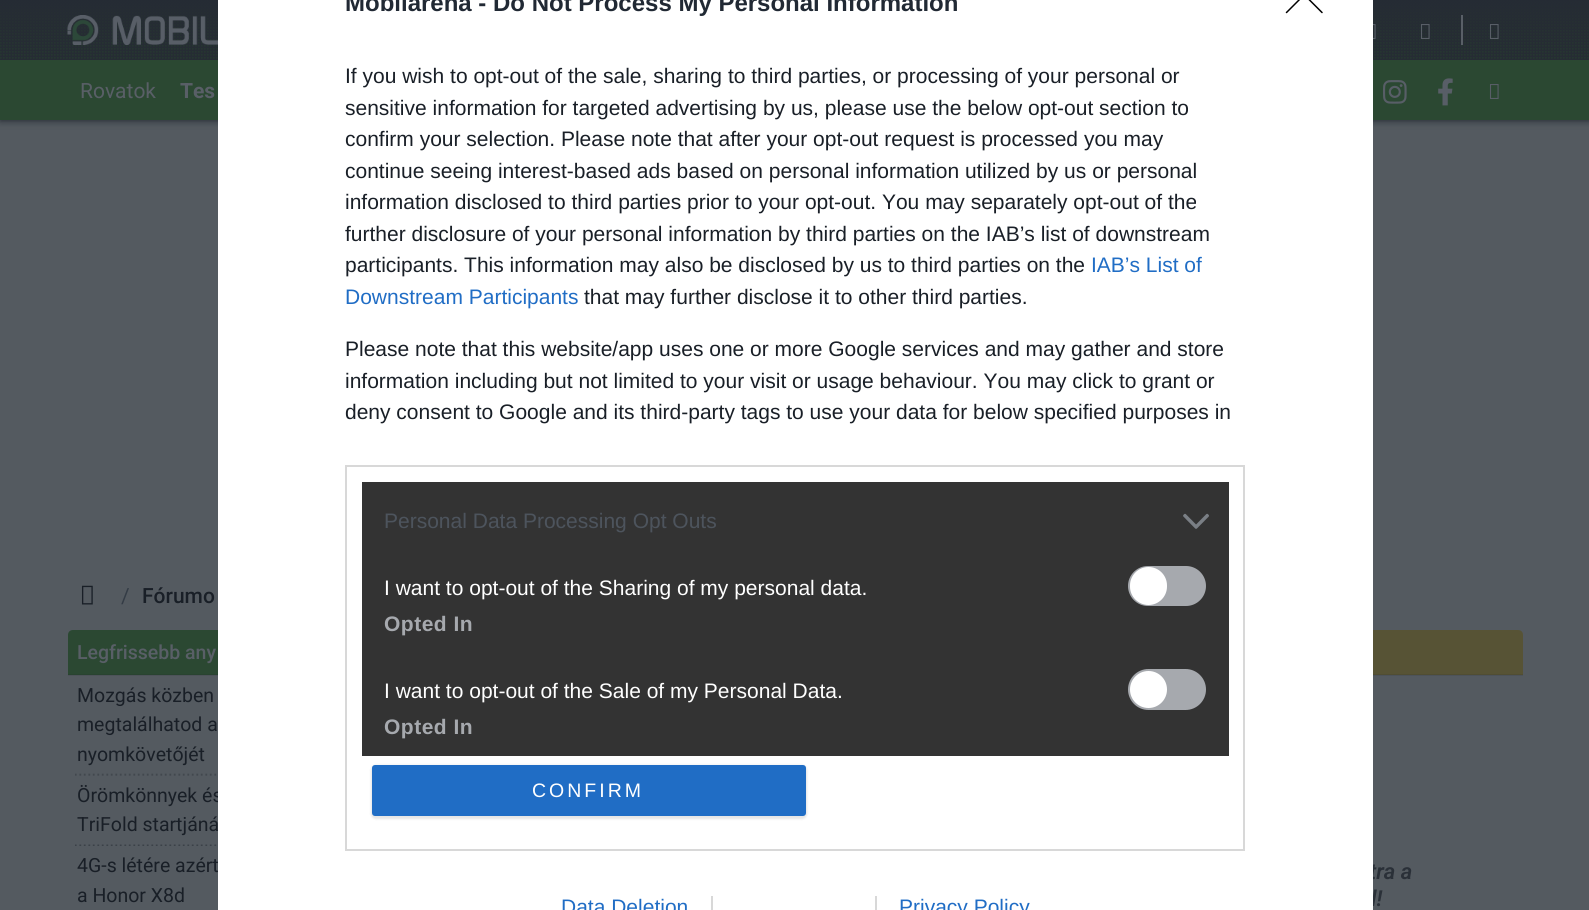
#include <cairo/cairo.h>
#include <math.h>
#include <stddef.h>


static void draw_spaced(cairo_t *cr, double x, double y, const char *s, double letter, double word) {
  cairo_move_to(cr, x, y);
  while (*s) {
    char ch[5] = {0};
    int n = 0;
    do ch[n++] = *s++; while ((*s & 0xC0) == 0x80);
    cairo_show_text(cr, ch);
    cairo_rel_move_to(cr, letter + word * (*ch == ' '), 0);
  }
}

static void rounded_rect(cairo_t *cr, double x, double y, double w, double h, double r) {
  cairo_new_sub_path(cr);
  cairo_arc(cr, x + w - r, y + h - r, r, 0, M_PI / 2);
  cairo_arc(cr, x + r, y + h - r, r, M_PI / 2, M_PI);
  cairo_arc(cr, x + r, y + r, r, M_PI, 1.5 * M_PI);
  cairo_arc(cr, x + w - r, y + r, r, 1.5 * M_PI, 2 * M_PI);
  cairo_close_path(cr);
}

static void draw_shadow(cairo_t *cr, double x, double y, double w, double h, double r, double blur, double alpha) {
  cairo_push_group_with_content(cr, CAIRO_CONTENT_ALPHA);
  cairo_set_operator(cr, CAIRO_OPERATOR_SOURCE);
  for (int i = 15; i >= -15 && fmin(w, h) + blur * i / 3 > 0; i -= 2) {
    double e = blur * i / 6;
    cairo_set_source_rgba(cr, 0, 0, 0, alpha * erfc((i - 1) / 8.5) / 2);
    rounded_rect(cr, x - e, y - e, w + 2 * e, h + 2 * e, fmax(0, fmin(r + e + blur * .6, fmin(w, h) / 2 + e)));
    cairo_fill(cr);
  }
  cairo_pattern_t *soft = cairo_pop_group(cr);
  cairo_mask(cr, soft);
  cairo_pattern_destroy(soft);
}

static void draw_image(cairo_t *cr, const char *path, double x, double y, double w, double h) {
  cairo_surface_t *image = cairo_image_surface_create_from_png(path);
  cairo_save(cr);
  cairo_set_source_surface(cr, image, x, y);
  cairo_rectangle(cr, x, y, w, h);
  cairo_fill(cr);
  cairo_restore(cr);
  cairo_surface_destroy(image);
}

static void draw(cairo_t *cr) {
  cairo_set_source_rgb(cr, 84 / 255.0, 90 / 255.0, 96 / 255.0);
  cairo_paint(cr);
  cairo_set_source_rgb(cr, 25 / 255.0, 31 / 255.0, 39 / 255.0);
  draw_shadow(cr, 0, 60, 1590, 60, 0, 4, 1);
  draw_image(cr, "images/1.png", 0, 0, 1589, 60);
  draw_image(cr, "images/2.png", 67, 15, 151, 30);
  draw_image(cr, "images/3.png", 1373, 24, 3, 15);
  draw_image(cr, "images/4.png", 1420, 24, 10, 15);
  cairo_set_source_rgb(cr, 89 / 255.0, 95 / 255.0, 103 / 255.0);
  cairo_rectangle(cr, 1461, 15, 2, 30);
  cairo_fill(cr);
  draw_image(cr, "images/5.png", 1489, 24, 10, 15);
  cairo_set_source_rgb(cr, 43 / 255.0, 72 / 255.0, 50 / 255.0);
  cairo_rectangle(cr, 0, 60, 1589, 60);
  cairo_fill(cr);
  draw_image(cr, "images/6.png", 1383, 80, 24, 24);
  draw_image(cr, "images/7.png", 1438, 78, 15, 28);
  draw_image(cr, "images/8.png", 1489, 84, 10, 15);
  cairo_set_source_rgb(cr, 77 / 255.0, 83 / 255.0, 89 / 255.0);
  cairo_rectangle(cr, 1373, 675, 150, 1);
  cairo_fill(cr);
  cairo_rectangle(cr, 68, 675, 150, 1);
  cairo_fill(cr);
  draw_image(cr, "images/10.png", 81, 585, 12, 20);
  cairo_set_source_rgb(cr, 43 / 255.0, 72 / 255.0, 50 / 255.0);
  cairo_new_path(cr);
  cairo_move_to(cr, 73, 630);
  cairo_line_to(cr, 355, 630);
  cairo_curve_to(cr, 358, 630, 360, 632, 360, 635);
  cairo_line_to(cr, 360, 675);
  cairo_line_to(cr, 68, 675);
  cairo_line_to(cr, 68, 635);
  cairo_curve_to(cr, 68, 632, 70, 630, 73, 630);
  cairo_close_path(cr);
  cairo_fill(cr);
  cairo_set_source_rgb(cr, 41 / 255.0, 67 / 255.0, 48 / 255.0);
  cairo_rectangle(cr, 68, 674, 150, 1);
  cairo_fill(cr);
  draw_image(cr, "images/11.png", 75, 773, 142, 3);
  draw_image(cr, "images/12.png", 75, 844, 142, 2);
  cairo_set_source_rgb(cr, 87 / 255.0, 83 / 255.0, 53 / 255.0);
  cairo_new_path(cr);
  cairo_move_to(cr, 1235, 630);
  cairo_line_to(cr, 1518, 630);
  cairo_curve_to(cr, 1521, 630, 1523, 632, 1523, 635);
  cairo_line_to(cr, 1523, 675);
  cairo_line_to(cr, 1230, 675);
  cairo_line_to(cr, 1230, 635);
  cairo_curve_to(cr, 1230, 632, 1232, 630, 1235, 630);
  cairo_close_path(cr);
  cairo_fill(cr);
  cairo_set_source_rgb(cr, 80 / 255.0, 77 / 255.0, 51 / 255.0);
  cairo_rectangle(cr, 1373, 674, 150, 1);
  cairo_fill(cr);
  cairo_select_font_face(cr, "Roboto", CAIRO_FONT_SLANT_NORMAL, CAIRO_FONT_WEIGHT_NORMAL);
  cairo_set_font_size(cr, 21);
  cairo_set_source_rgb(cr, 89 / 255.0, 95 / 255.0, 103 / 255.0);
  cairo_move_to(cr, 80, 98);
  cairo_show_text(cr, "Rovatok");
  cairo_select_font_face(cr, "Roboto", CAIRO_FONT_SLANT_NORMAL, CAIRO_FONT_WEIGHT_BOLD);
  cairo_move_to(cr, 180, 98);
  cairo_show_text(cr, "Tes");
  cairo_select_font_face(cr, "Roboto", CAIRO_FONT_SLANT_NORMAL, CAIRO_FONT_WEIGHT_NORMAL);
  cairo_set_source_rgb(cr, 52 / 255.0, 60 / 255.0, 70 / 255.0);
  cairo_move_to(cr, 121, 603);
  cairo_show_text(cr, "/");
  cairo_select_font_face(cr, "Roboto Medium", CAIRO_FONT_SLANT_NORMAL, CAIRO_FONT_WEIGHT_NORMAL);
  cairo_set_source_rgb(cr, 25 / 255.0, 31 / 255.0, 39 / 255.0);
  cairo_move_to(cr, 142, 603);
  cairo_show_text(cr, "Fórumo");
  cairo_set_font_size(cr, 19.5);
  cairo_set_source_rgb(cr, 89 / 255.0, 95 / 255.0, 103 / 255.0);
  cairo_move_to(cr, 77, 659);
  cairo_show_text(cr, "Legfrissebb any");
  cairo_select_font_face(cr, "Roboto", CAIRO_FONT_SLANT_NORMAL, CAIRO_FONT_WEIGHT_NORMAL);
  cairo_set_source_rgb(cr, 25 / 255.0, 31 / 255.0, 39 / 255.0);
  cairo_move_to(cr, 77, 702);
  cairo_show_text(cr, "Mozgás közben");
  cairo_move_to(cr, 77, 731);
  cairo_show_text(cr, "megtalálhatod a");
  cairo_move_to(cr, 77, 761);
  cairo_show_text(cr, "nyomkövetőjét");
  cairo_move_to(cr, 77, 802);
  cairo_show_text(cr, "Örömkönnyek és");
  cairo_move_to(cr, 77, 831);
  cairo_show_text(cr, "TriFold startjáná");
  cairo_move_to(cr, 77, 872);
  cairo_show_text(cr, "4G-s létére azért");
  cairo_move_to(cr, 77, 902);
  cairo_show_text(cr, "a Honor X8d");
  cairo_select_font_face(cr, "Roboto SemiBold", CAIRO_FONT_SLANT_ITALIC, CAIRO_FONT_WEIGHT_NORMAL);
  cairo_set_font_size(cr, 22);
  cairo_set_source_rgb(cr, 42 / 255.0, 48 / 255.0, 56 / 255.0);
  cairo_move_to(cr, 1369, 879);
  cairo_show_text(cr, "tra a");
  cairo_move_to(cr, 1371, 906);
  cairo_show_text(cr, "l!");
  cairo_set_source_rgb(cr, 1, 1, 1);
  cairo_rectangle(cr, 218, 0, 1155, 910);
  cairo_fill(cr);
  cairo_rectangle(cr, 346, 466, 898, 384);
  cairo_set_source_rgb(cr, 216 / 255.0, 216 / 255.0, 216 / 255.0);
  cairo_stroke(cr);
  cairo_set_source_rgb(cr, 51 / 255.0, 51 / 255.0, 51 / 255.0);
  cairo_rectangle(cr, 362, 482, 867, 274);
  cairo_fill(cr);
  cairo_set_source_rgb(cr, 166 / 255.0, 169 / 255.0, 174 / 255.0);
  rounded_rect(cr, 1129, 670, 76, 39, 19.5);
  cairo_fill_preserve(cr);
  cairo_stroke(cr);
  cairo_set_source_rgb(cr, 1, 1, 1);
  cairo_arc(cr, 1148.5, 689.5, 18.5, 0, 2 * M_PI);
  cairo_fill(cr);
  cairo_set_source_rgb(cr, 166 / 255.0, 169 / 255.0, 174 / 255.0);
  rounded_rect(cr, 1129, 567, 76, 38, 19);
  cairo_fill_preserve(cr);
  cairo_stroke(cr);
  cairo_set_source_rgb(cr, 1, 1, 1);
  rounded_rect(cr, 1130, 567, 37, 38, 18.5);
  cairo_fill(cr);
  draw_image(cr, "images/9.png", 1183, 513, 26, 16);
  cairo_new_path(cr);
  cairo_move_to(cr, 1286.5, -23);
  cairo_line_to(cr, 1322, 12.5);
  cairo_move_to(cr, 1322, -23);
  cairo_line_to(cr, 1286.5, 12.5);
  cairo_set_source_rgb(cr, 0, 0, 0);
  cairo_set_line_width(cr, 1.5);
  cairo_set_line_cap(cr, CAIRO_LINE_CAP_ROUND);
  cairo_set_line_join(cr, CAIRO_LINE_JOIN_ROUND);
  cairo_stroke(cr);
  cairo_set_source_rgb(cr, 0, 0, 0);
  draw_shadow(cr, 371, 765, 436, 54, 5, 1, 0.1);
  cairo_set_source_rgb(cr, 32 / 255.0, 109 / 255.0, 197 / 255.0);
  rounded_rect(cr, 372, 765, 434, 51, 3);
  cairo_fill(cr);
  cairo_select_font_face(cr, "Liberation Sans", CAIRO_FONT_SLANT_NORMAL, CAIRO_FONT_WEIGHT_NORMAL);
  cairo_set_font_size(cr, 19.5);
  cairo_set_source_rgb(cr, 1, 1, 1);
  draw_spaced(cr, 532, 797, "CONFIRM", 3, 0);
  cairo_select_font_face(cr, "Liberation Sans", CAIRO_FONT_SLANT_NORMAL, CAIRO_FONT_WEIGHT_BOLD);
  cairo_set_font_size(cr, 21);
  cairo_set_source_rgb(cr, 166 / 255.0, 169 / 255.0, 174 / 255.0);
  draw_spaced(cr, 384, 734, "Opted In", 0.5, 0);
  cairo_select_font_face(cr, "Liberation Sans", CAIRO_FONT_SLANT_NORMAL, CAIRO_FONT_WEIGHT_NORMAL);
  cairo_set_source_rgb(cr, 1, 1, 1);
  cairo_move_to(cr, 384, 698);
  cairo_show_text(cr, "I want to opt-out of the Sale of my Personal Data.");
  cairo_select_font_face(cr, "Liberation Sans", CAIRO_FONT_SLANT_NORMAL, CAIRO_FONT_WEIGHT_BOLD);
  cairo_set_source_rgb(cr, 166 / 255.0, 169 / 255.0, 174 / 255.0);
  draw_spaced(cr, 384, 631, "Opted In", 0.5, 0);
  cairo_select_font_face(cr, "Liberation Sans", CAIRO_FONT_SLANT_NORMAL, CAIRO_FONT_WEIGHT_NORMAL);
  cairo_set_source_rgb(cr, 1, 1, 1);
  cairo_move_to(cr, 384, 595);
  cairo_show_text(cr, "I want to opt-out of the Sharing of my personal data.");
  cairo_set_source_rgb(cr, 77 / 255.0, 84 / 255.0, 93 / 255.0);
  cairo_move_to(cr, 384, 528);
  cairo_show_text(cr, "Personal Data Processing Opt Outs");
  cairo_set_source_rgb(cr, 25 / 255.0, 31 / 255.0, 39 / 255.0);
  cairo_move_to(cr, 345, 419);
  cairo_show_text(cr, "deny consent to Google and its third-party tags to use your data for below specified purposes in");
  cairo_move_to(cr, 345, 388);
  cairo_show_text(cr, "information including but not limited to your visit or usage behaviour. You may click to grant or");
  cairo_move_to(cr, 345, 356);
  cairo_show_text(cr, "Please note that this website/app uses one or more Google services and may gather and store");
  cairo_move_to(cr, 584, 304);
  cairo_show_text(cr, "that may further disclose it to other third parties.");
  cairo_set_source_rgb(cr, 32 / 255.0, 109 / 255.0, 197 / 255.0);
  cairo_move_to(cr, 345, 304);
  cairo_show_text(cr, "Downstream Participants");
  cairo_move_to(cr, 1091, 272);
  cairo_show_text(cr, "IAB’s List of");
  cairo_set_source_rgb(cr, 25 / 255.0, 31 / 255.0, 39 / 255.0);
  cairo_move_to(cr, 345, 272);
  cairo_show_text(cr, "participants. This information may also be disclosed by us to third parties on the");
  cairo_move_to(cr, 345, 241);
  cairo_show_text(cr, "further disclosure of your personal information by third parties on the IAB’s list of downstream");
  cairo_move_to(cr, 345, 209);
  cairo_show_text(cr, "information disclosed to third parties prior to your opt-out. You may separately opt-out of the");
  cairo_move_to(cr, 345, 178);
  cairo_show_text(cr, "continue seeing interest-based ads based on personal information utilized by us or personal");
  cairo_move_to(cr, 345, 146);
  cairo_show_text(cr, "confirm your selection. Please note that after your opt-out request is processed you may");
  cairo_move_to(cr, 345, 115);
  cairo_show_text(cr, "sensitive information for targeted advertising by us, please use the below opt-out section to");
  cairo_move_to(cr, 345, 83);
  cairo_show_text(cr, "If you wish to opt-out of the sale, sharing to third parties, or processing of your personal or");
  cairo_set_source_rgb(cr, 32 / 255.0, 109 / 255.0, 197 / 255.0);
  cairo_move_to(cr, 899, 914);
  cairo_show_text(cr, "Privacy Policy");
  cairo_set_source_rgb(cr, 216 / 255.0, 216 / 255.0, 216 / 255.0);
  cairo_rectangle(cr, 875, 896, 2, 14);
  cairo_fill(cr);
  cairo_rectangle(cr, 711, 896, 2, 14);
  cairo_fill(cr);
  cairo_set_source_rgb(cr, 32 / 255.0, 109 / 255.0, 197 / 255.0);
  cairo_move_to(cr, 561, 914);
  cairo_show_text(cr, "Data Deletion");
  cairo_select_font_face(cr, "Liberation Sans", CAIRO_FONT_SLANT_NORMAL, CAIRO_FONT_WEIGHT_BOLD);
  cairo_set_font_size(cr, 24);
  cairo_set_source_rgb(cr, 33 / 255.0, 41 / 255.0, 52 / 255.0);
  cairo_move_to(cr, 345, 11);
  cairo_show_text(cr, "Mobilaréna - Do Not Process My Personal Information");
}

int main(void) {
  cairo_surface_t *surface = cairo_image_surface_create(CAIRO_FORMAT_RGB24, 1589, 910);
  cairo_t *cr = cairo_create(surface);
  cairo_font_options_t *options = cairo_font_options_create();
  cairo_font_options_set_hint_metrics(options, CAIRO_HINT_METRICS_OFF);
  cairo_font_options_set_hint_style(options, CAIRO_HINT_STYLE_NONE);
  cairo_set_font_options(cr, options);
  cairo_set_miter_limit(cr, 4);
  draw(cr);
  cairo_surface_write_to_png(surface, "out.png");
  cairo_font_options_destroy(options);
  cairo_destroy(cr);
  cairo_surface_destroy(surface);
  return 0;
}
